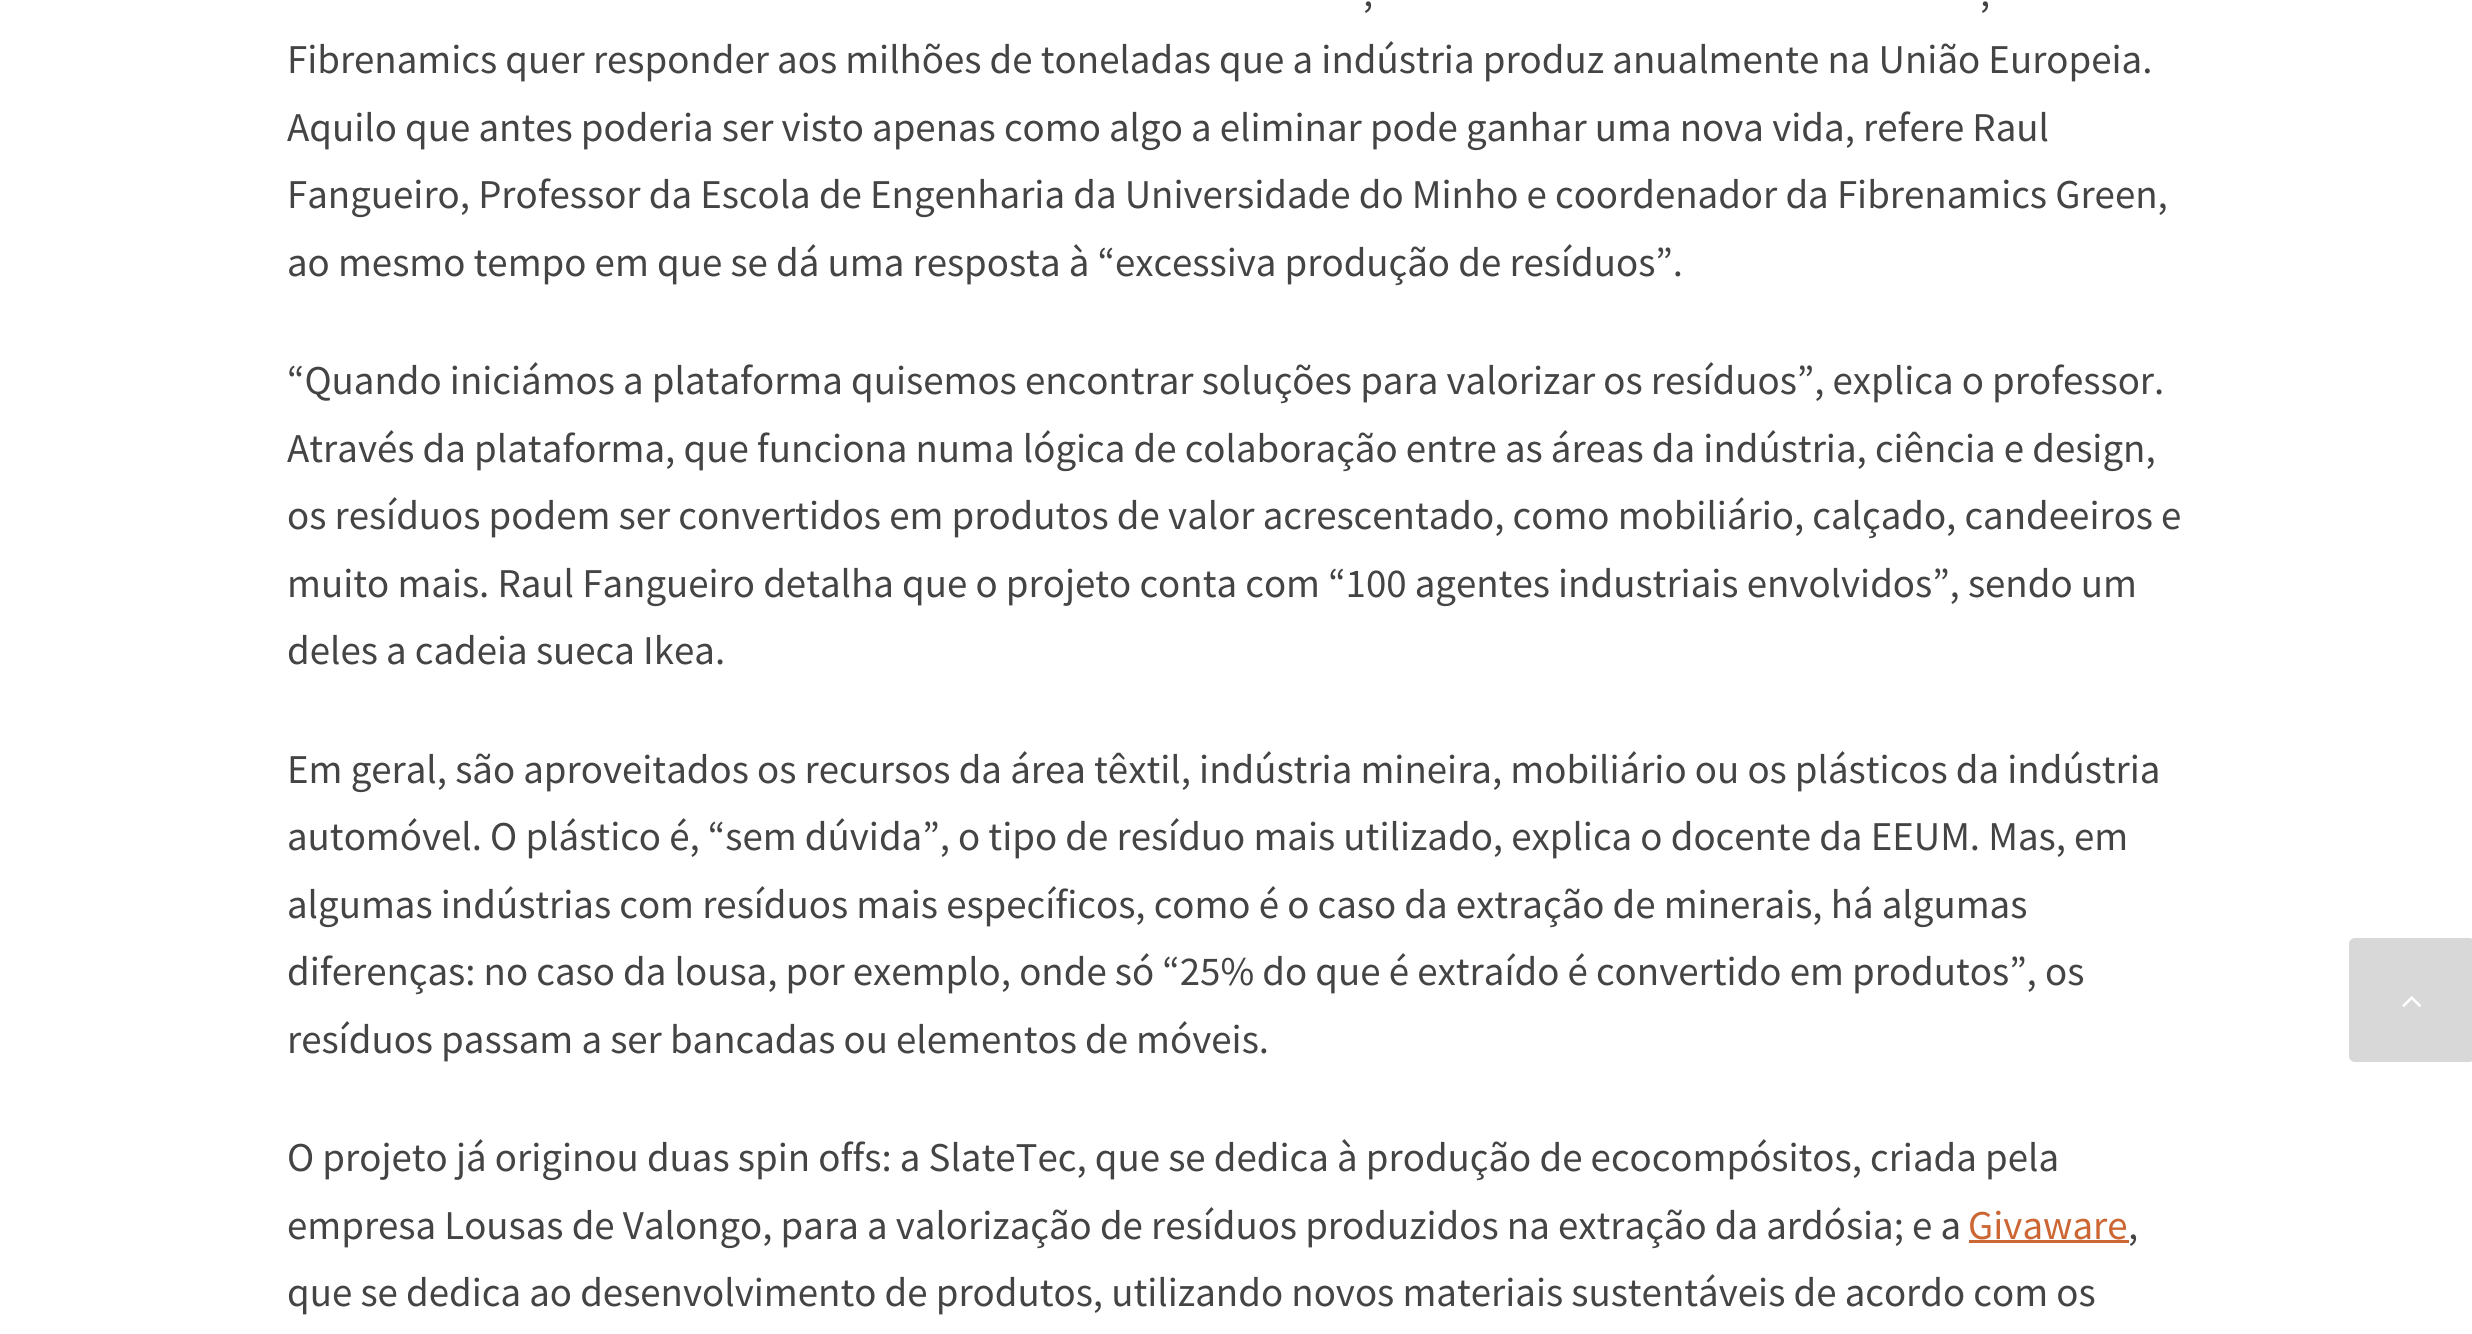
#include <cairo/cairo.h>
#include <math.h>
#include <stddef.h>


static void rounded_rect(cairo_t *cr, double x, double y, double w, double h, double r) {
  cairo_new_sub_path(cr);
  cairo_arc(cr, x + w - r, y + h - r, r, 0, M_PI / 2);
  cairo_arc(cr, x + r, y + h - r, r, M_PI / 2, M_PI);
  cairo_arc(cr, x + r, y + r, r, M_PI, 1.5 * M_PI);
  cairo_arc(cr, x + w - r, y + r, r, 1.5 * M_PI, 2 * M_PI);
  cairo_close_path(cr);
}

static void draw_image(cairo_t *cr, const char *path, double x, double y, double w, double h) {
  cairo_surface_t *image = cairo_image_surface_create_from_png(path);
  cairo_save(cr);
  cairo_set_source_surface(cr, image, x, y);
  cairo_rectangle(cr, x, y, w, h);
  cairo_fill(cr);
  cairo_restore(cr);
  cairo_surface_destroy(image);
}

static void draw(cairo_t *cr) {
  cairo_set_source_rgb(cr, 1, 1, 1);
  cairo_paint(cr);
  cairo_set_source_rgb(cr, 204 / 255.0, 102 / 255.0, 51 / 255.0);
  cairo_rectangle(cr, 1969, 1240, 160, 3);
  cairo_fill(cr);
  cairo_set_source_rgb(cr, 216 / 255.0, 216 / 255.0, 216 / 255.0);
  rounded_rect(cr, 2349, 938, 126, 124, 6);
  cairo_fill(cr);
  draw_image(cr, "images/1.png", 2402, 996, 19, 11);
  cairo_select_font_face(cr, "Source Sans Pro", CAIRO_FONT_SLANT_NORMAL, CAIRO_FONT_WEIGHT_NORMAL);
  cairo_set_font_size(cr, 40.9);
  cairo_set_source_rgb(cr, 68 / 255.0, 68 / 255.0, 68 / 255.0);
  cairo_move_to(cr, 1363, 6);
  cairo_show_text(cr, ",");
  cairo_move_to(cr, 1980, 6);
  cairo_show_text(cr, ",");
  cairo_move_to(cr, 287, 73);
  cairo_show_text(cr, "Fibrenamics quer responder aos milhões de toneladas que a indústria produz anualmente na União Europeia.");
  cairo_move_to(cr, 287, 141);
  cairo_show_text(cr, "Aquilo que antes poderia ser visto apenas como algo a eliminar pode ganhar uma nova vida, refere Raul");
  cairo_move_to(cr, 287, 208);
  cairo_show_text(cr, "Fangueiro, Professor da Escola de Engenharia da Universidade do Minho e coordenador da Fibrenamics Green,");
  cairo_move_to(cr, 287, 276);
  cairo_show_text(cr, "ao mesmo tempo em que se dá uma resposta à “excessiva produção de resíduos”.");
  cairo_move_to(cr, 287, 394);
  cairo_show_text(cr, "“Quando iniciámos a plataforma quisemos encontrar soluções para valorizar os resíduos”, explica o professor.");
  cairo_move_to(cr, 287, 462);
  cairo_show_text(cr, "Através da plataforma, que funciona numa lógica de colaboração entre as áreas da indústria, ciência e design,");
  cairo_move_to(cr, 287, 529);
  cairo_show_text(cr, "os resíduos podem ser convertidos em produtos de valor acrescentado, como mobiliário, calçado, candeeiros e");
  cairo_move_to(cr, 287, 597);
  cairo_show_text(cr, "muito mais. Raul Fangueiro detalha que o projeto conta com “100 agentes industriais envolvidos”, sendo um");
  cairo_move_to(cr, 287, 664);
  cairo_show_text(cr, "deles a cadeia sueca Ikea.");
  cairo_move_to(cr, 287, 783);
  cairo_show_text(cr, "Em geral, são aproveitados os recursos da área têxtil, indústria mineira, mobiliário ou os plásticos da indústria");
  cairo_move_to(cr, 287, 850);
  cairo_show_text(cr, "automóvel. O plástico é, “sem dúvida”, o tipo de resíduo mais utilizado, explica o docente da EEUM. Mas, em");
  cairo_move_to(cr, 287, 918);
  cairo_show_text(cr, "algumas indústrias com resíduos mais específicos, como é o caso da extração de minerais, há algumas");
  cairo_move_to(cr, 287, 985);
  cairo_show_text(cr, "diferenças: no caso da lousa, por exemplo, onde só “25% do que é extraído é convertido em produtos”, os");
  cairo_move_to(cr, 287, 1053);
  cairo_show_text(cr, "resíduos passam a ser bancadas ou elementos de móveis.");
  cairo_move_to(cr, 287, 1171);
  cairo_show_text(cr, "O projeto já originou duas spin offs: a SlateTec, que se dedica à produção de ecocompósitos, criada pela");
  cairo_move_to(cr, 287, 1239);
  cairo_show_text(cr, "empresa Lousas de Valongo, para a valorização de resíduos produzidos na extração da ardósia; e a");
  cairo_set_source_rgb(cr, 204 / 255.0, 102 / 255.0, 51 / 255.0);
  cairo_move_to(cr, 1968, 1239);
  cairo_show_text(cr, "Givaware");
  cairo_set_source_rgb(cr, 68 / 255.0, 68 / 255.0, 68 / 255.0);
  cairo_move_to(cr, 2128, 1239);
  cairo_show_text(cr, ",");
  cairo_move_to(cr, 287, 1306);
  cairo_show_text(cr, "que se dedica ao desenvolvimento de produtos, utilizando novos materiais sustentáveis de acordo com os");
}

int main(void) {
  cairo_surface_t *surface = cairo_image_surface_create(CAIRO_FORMAT_RGB24, 2472, 1334);
  cairo_t *cr = cairo_create(surface);
  cairo_font_options_t *options = cairo_font_options_create();
  cairo_font_options_set_hint_metrics(options, CAIRO_HINT_METRICS_OFF);
  cairo_font_options_set_hint_style(options, CAIRO_HINT_STYLE_NONE);
  cairo_set_font_options(cr, options);
  cairo_set_miter_limit(cr, 4);
  draw(cr);
  cairo_surface_write_to_png(surface, "out.png");
  cairo_font_options_destroy(options);
  cairo_destroy(cr);
  cairo_surface_destroy(surface);
  return 0;
}
